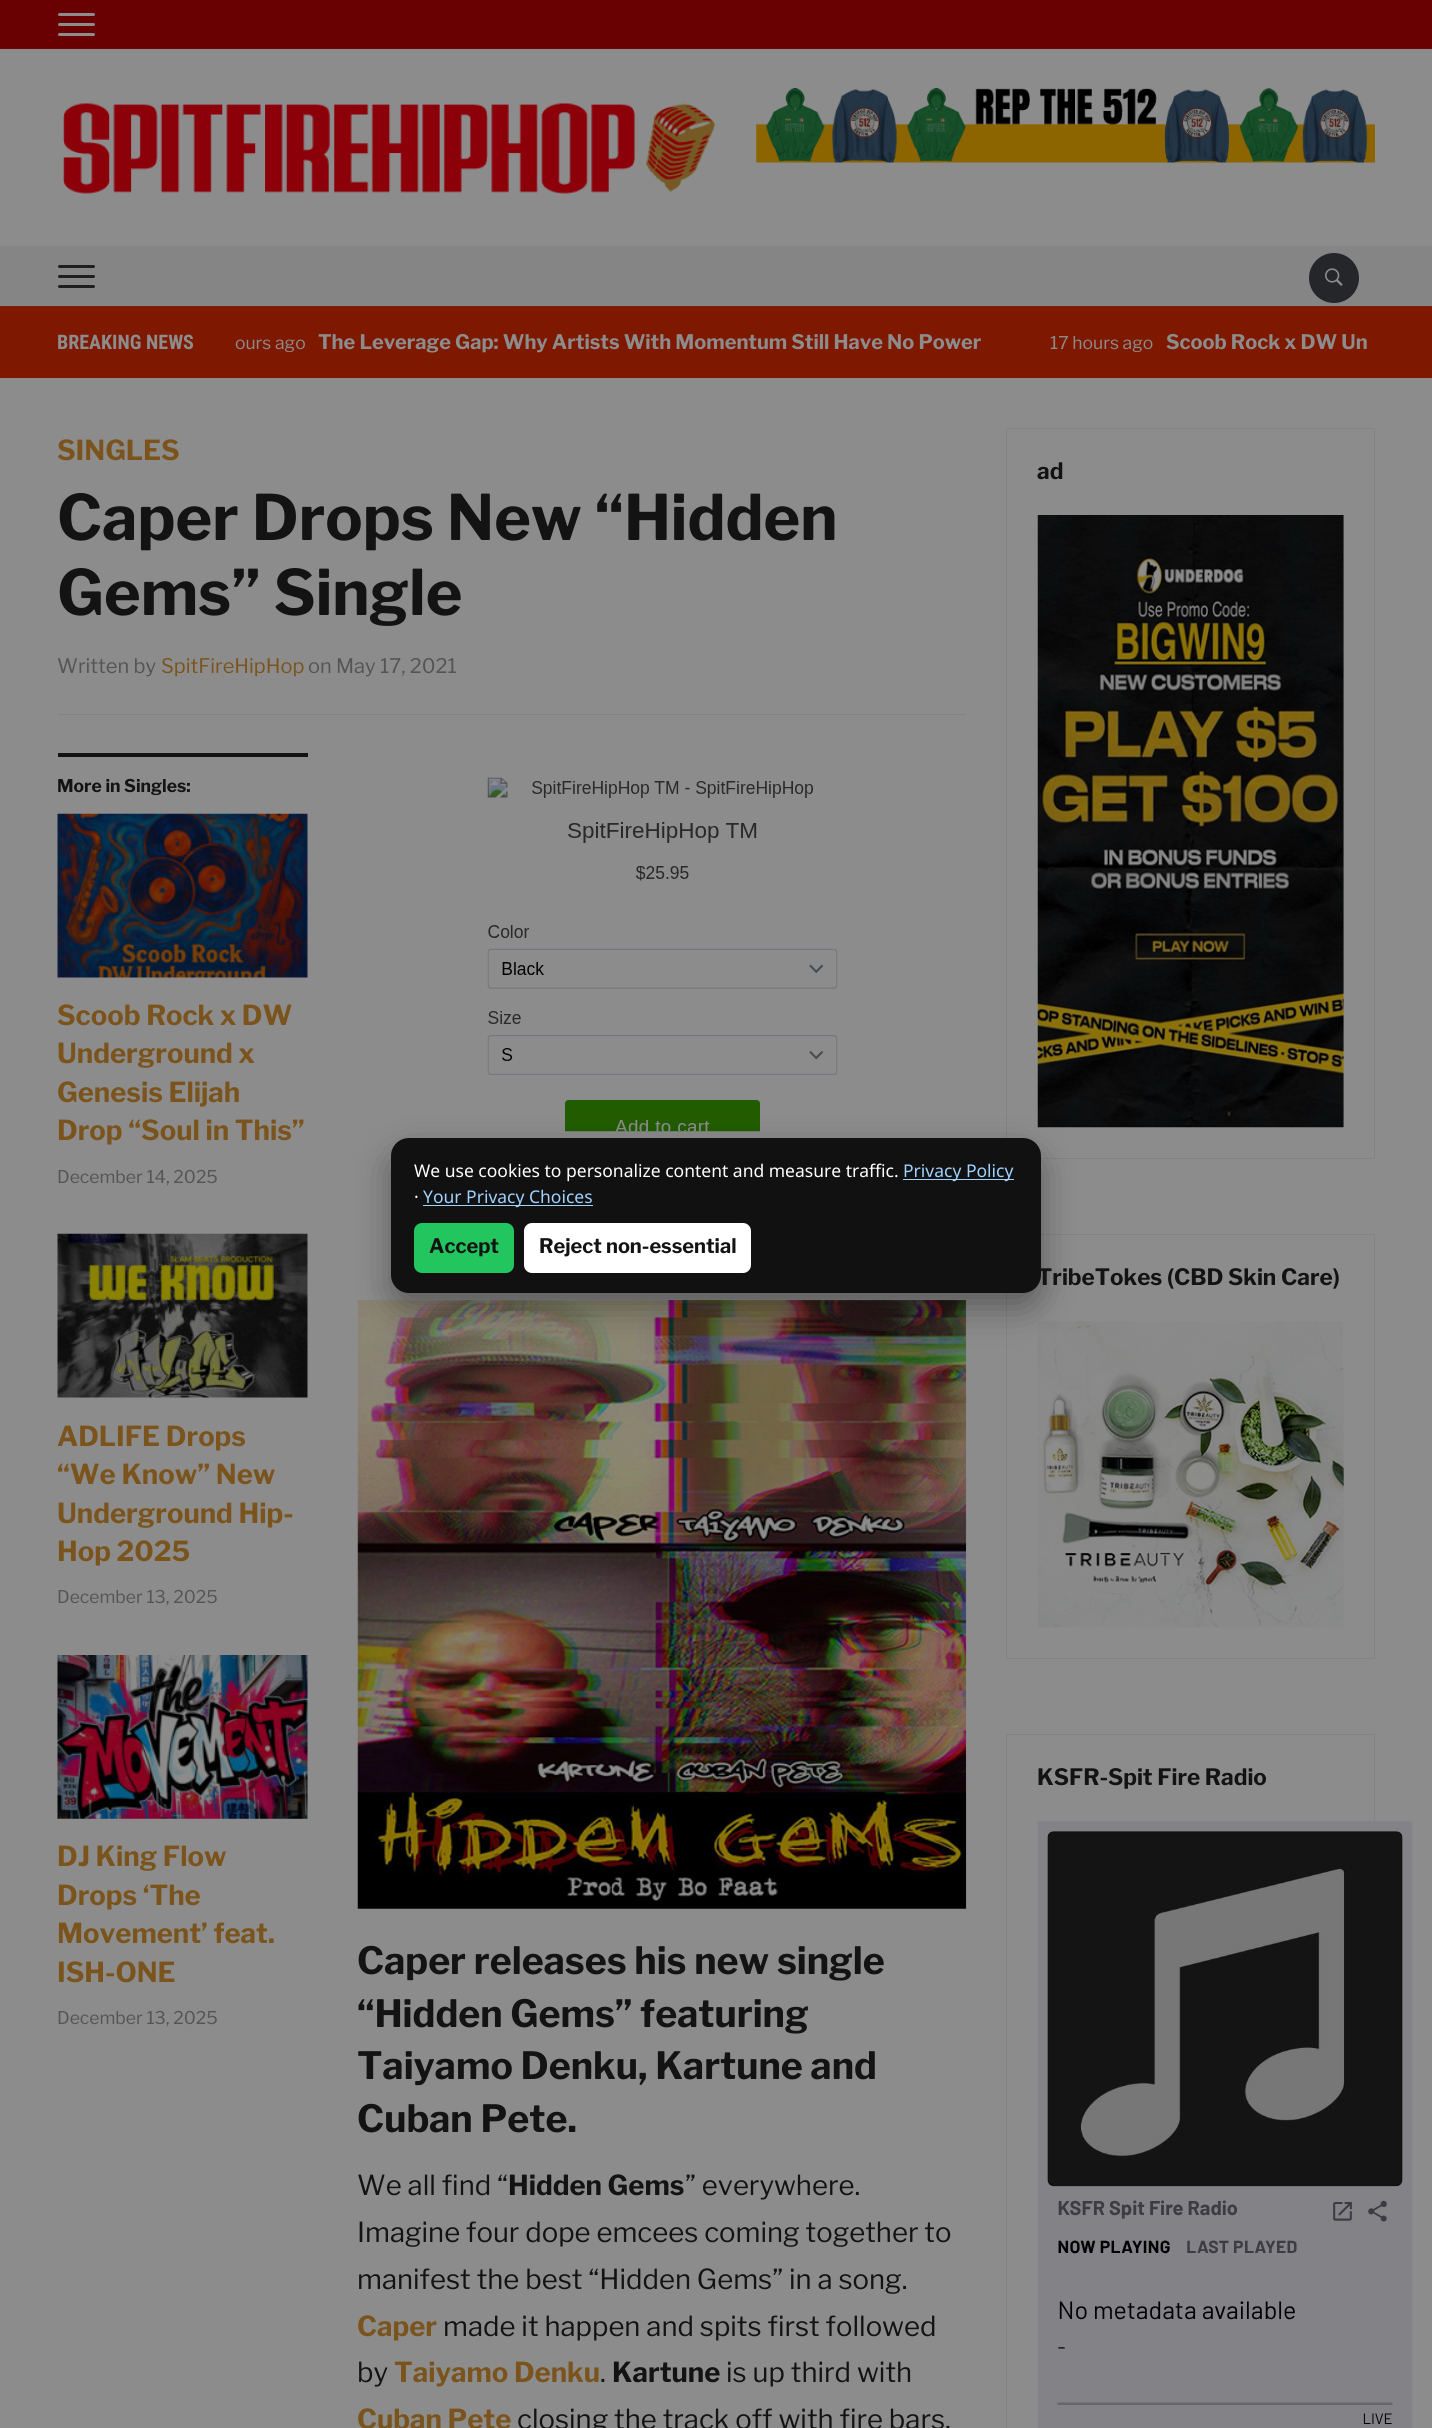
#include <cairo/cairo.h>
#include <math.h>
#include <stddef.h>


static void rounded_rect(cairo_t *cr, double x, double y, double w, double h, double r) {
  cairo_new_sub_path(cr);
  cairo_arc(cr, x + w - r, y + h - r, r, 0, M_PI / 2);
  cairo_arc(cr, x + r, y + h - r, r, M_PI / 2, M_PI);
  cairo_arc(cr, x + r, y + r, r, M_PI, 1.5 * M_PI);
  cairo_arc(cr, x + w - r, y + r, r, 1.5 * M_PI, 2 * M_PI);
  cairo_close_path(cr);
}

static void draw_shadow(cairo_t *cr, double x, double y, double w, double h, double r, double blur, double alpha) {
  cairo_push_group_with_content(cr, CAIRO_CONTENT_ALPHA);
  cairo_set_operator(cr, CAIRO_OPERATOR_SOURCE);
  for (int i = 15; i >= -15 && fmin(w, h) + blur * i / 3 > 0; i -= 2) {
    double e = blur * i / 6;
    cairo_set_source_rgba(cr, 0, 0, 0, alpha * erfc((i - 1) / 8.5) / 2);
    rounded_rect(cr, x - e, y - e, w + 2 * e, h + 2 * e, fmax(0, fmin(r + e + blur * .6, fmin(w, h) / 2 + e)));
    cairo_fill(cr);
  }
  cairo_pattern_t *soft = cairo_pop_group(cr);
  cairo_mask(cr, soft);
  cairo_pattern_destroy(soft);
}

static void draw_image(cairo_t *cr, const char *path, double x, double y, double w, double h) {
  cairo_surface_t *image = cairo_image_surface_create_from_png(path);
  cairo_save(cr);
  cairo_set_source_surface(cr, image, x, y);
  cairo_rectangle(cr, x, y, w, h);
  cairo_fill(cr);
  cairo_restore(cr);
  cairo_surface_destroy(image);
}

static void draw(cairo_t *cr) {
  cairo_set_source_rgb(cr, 140 / 255.0, 140 / 255.0, 140 / 255.0);
  cairo_paint(cr);
  cairo_set_source_rgb(cr, 105 / 255.0, 0, 1 / 255.0);
  cairo_rectangle(cr, 0, 0, 1432, 48);
  cairo_fill(cr);
  cairo_set_source_rgb(cr, 106 / 255.0, 7 / 255.0, 8 / 255.0);
  cairo_rectangle(cr, 0, 48, 1432, 1);
  cairo_fill(cr);
  cairo_set_source_rgb(cr, 140 / 255.0, 140 / 255.0, 140 / 255.0);
  rounded_rect(cr, 58, 13, 37, 3, 1.5);
  cairo_fill(cr);
  rounded_rect(cr, 58, 23, 37, 3, 1.5);
  cairo_fill(cr);
  rounded_rect(cr, 58, 33, 37, 3, 1.5);
  cairo_fill(cr);
  draw_image(cr, "images/1.png", 63, 103, 653, 91);
  draw_image(cr, "images/2.png", 756, 87, 619, 76);
  cairo_set_source_rgb(cr, 133 / 255.0, 133 / 255.0, 133 / 255.0);
  cairo_rectangle(cr, 0, 246, 1432, 60);
  cairo_fill(cr);
  cairo_set_source_rgb(cr, 29 / 255.0, 30 / 255.0, 31 / 255.0);
  rounded_rect(cr, 58, 265, 37, 3, 1.5);
  cairo_fill(cr);
  rounded_rect(cr, 58, 275, 37, 3, 1.5);
  cairo_fill(cr);
  rounded_rect(cr, 58, 285, 37, 3, 1.5);
  cairo_fill(cr);
  cairo_set_source_rgb(cr, 36 / 255.0, 38 / 255.0, 42 / 255.0);
  cairo_arc(cr, 1334, 278, 25, 0, 2 * M_PI);
  cairo_fill(cr);
  draw_image(cr, "images/3.png", 1325, 268, 18, 18);
  cairo_set_source_rgb(cr, 126 / 255.0, 25 / 255.0, 0);
  cairo_rectangle(cr, 0, 307, 1432, 71);
  cairo_fill(cr);
  cairo_set_source_rgb(cr, 127 / 255.0, 31 / 255.0, 7 / 255.0);
  cairo_rectangle(cr, 0, 306, 1432, 1);
  cairo_fill(cr);
  cairo_set_source_rgb(cr, 131 / 255.0, 131 / 255.0, 131 / 255.0);
  cairo_rectangle(cr, 58, 714, 908, 1);
  cairo_fill(cr);
  cairo_set_source_rgb(cr, 19 / 255.0, 19 / 255.0, 19 / 255.0);
  cairo_rectangle(cr, 58, 753, 250, 4);
  cairo_fill(cr);
  draw_image(cr, "images/4.png", 57, 813, 251, 165);
  draw_image(cr, "images/5.png", 57, 1233, 251, 165);
  draw_image(cr, "images/6.png", 57, 1655, 251, 164);
  draw_image(cr, "images/7.png", 487, 777, 351, 355);
  draw_image(cr, "images/8.png", 357, 1300, 610, 609);
  cairo_rectangle(cr, 1006.5, 428.5, 368, 730);
  cairo_set_source_rgb(cr, 131 / 255.0, 131 / 255.0, 131 / 255.0);
  cairo_set_line_width(cr, 1);
  cairo_stroke(cr);
  draw_image(cr, "images/9.png", 1037, 515, 307, 613);
  cairo_rectangle(cr, 1006.5, 1234.5, 368, 424);
  cairo_stroke(cr);
  draw_image(cr, "images/10.png", 1037, 1321, 307, 307);
  cairo_rectangle(cr, 1006.5, 1734.5, 368, 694);
  cairo_stroke(cr);
  draw_image(cr, "images/11.png", 1037, 1821, 376, 607);
  cairo_set_source_rgb(cr, 0, 0, 0);
  draw_shadow(cr, 391, 1153, 650, 155, 18, 17.5, 0.35);
  cairo_select_font_face(cr, "Roboto Condensed", CAIRO_FONT_SLANT_NORMAL, CAIRO_FONT_WEIGHT_BOLD);
  cairo_set_font_size(cr, 20);
  cairo_set_source_rgb(cr, 140 / 255.0, 140 / 255.0, 140 / 255.0);
  cairo_move_to(cr, 57, 349);
  cairo_show_text(cr, "BREAKING NEWS");
  cairo_select_font_face(cr, "Libre Franklin", CAIRO_FONT_SLANT_NORMAL, CAIRO_FONT_WEIGHT_NORMAL);
  cairo_set_font_size(cr, 17.5);
  cairo_move_to(cr, 235, 349);
  cairo_show_text(cr, "ours ago");
  cairo_select_font_face(cr, "Libre Franklin", CAIRO_FONT_SLANT_NORMAL, CAIRO_FONT_WEIGHT_BOLD);
  cairo_set_font_size(cr, 20);
  cairo_move_to(cr, 318, 349);
  cairo_show_text(cr, "The Leverage Gap: Why Artists With Momentum Still Have No Power");
  cairo_select_font_face(cr, "Libre Franklin", CAIRO_FONT_SLANT_NORMAL, CAIRO_FONT_WEIGHT_NORMAL);
  cairo_set_font_size(cr, 17.5);
  cairo_move_to(cr, 1050, 349);
  cairo_show_text(cr, "17 hours ago");
  cairo_select_font_face(cr, "Libre Franklin", CAIRO_FONT_SLANT_NORMAL, CAIRO_FONT_WEIGHT_BOLD);
  cairo_set_font_size(cr, 20);
  cairo_move_to(cr, 1166, 349);
  cairo_show_text(cr, "Scoob Rock x DW Un");
  cairo_set_font_size(cr, 27.5);
  cairo_set_source_rgb(cr, 122 / 255.0, 84 / 255.0, 28 / 255.0);
  cairo_move_to(cr, 57, 460);
  cairo_show_text(cr, "SINGLES");
  cairo_set_font_size(cr, 62.5);
  cairo_set_source_rgb(cr, 19 / 255.0, 19 / 255.0, 19 / 255.0);
  cairo_move_to(cr, 57, 540);
  cairo_show_text(cr, "Caper Drops New “Hidden");
  cairo_move_to(cr, 57, 615);
  cairo_show_text(cr, "Gems” Single");
  cairo_select_font_face(cr, "Libre Franklin", CAIRO_FONT_SLANT_NORMAL, CAIRO_FONT_WEIGHT_NORMAL);
  cairo_set_font_size(cr, 20);
  cairo_set_source_rgb(cr, 84 / 255.0, 84 / 255.0, 84 / 255.0);
  cairo_move_to(cr, 57, 673);
  cairo_show_text(cr, "Written by");
  cairo_set_source_rgb(cr, 122 / 255.0, 84 / 255.0, 28 / 255.0);
  cairo_move_to(cr, 161, 673);
  cairo_show_text(cr, "SpitFireHipHop");
  cairo_set_source_rgb(cr, 84 / 255.0, 84 / 255.0, 84 / 255.0);
  cairo_move_to(cr, 308, 673);
  cairo_show_text(cr, "on May 17, 2021");
  cairo_select_font_face(cr, "Libre Franklin", CAIRO_FONT_SLANT_NORMAL, CAIRO_FONT_WEIGHT_BOLD);
  cairo_set_font_size(cr, 17.5);
  cairo_set_source_rgb(cr, 19 / 255.0, 19 / 255.0, 19 / 255.0);
  cairo_move_to(cr, 57, 792);
  cairo_show_text(cr, "More in Singles:");
  cairo_set_font_size(cr, 27.5);
  cairo_set_source_rgb(cr, 122 / 255.0, 84 / 255.0, 28 / 255.0);
  cairo_move_to(cr, 57, 1025);
  cairo_show_text(cr, "Scoob Rock x DW");
  cairo_move_to(cr, 57, 1063);
  cairo_show_text(cr, "Underground x");
  cairo_move_to(cr, 57, 1102);
  cairo_show_text(cr, "Genesis Elijah");
  cairo_move_to(cr, 57, 1140);
  cairo_show_text(cr, "Drop “Soul in This”");
  cairo_select_font_face(cr, "Libre Franklin", CAIRO_FONT_SLANT_NORMAL, CAIRO_FONT_WEIGHT_NORMAL);
  cairo_set_font_size(cr, 17.5);
  cairo_set_source_rgb(cr, 84 / 255.0, 84 / 255.0, 84 / 255.0);
  cairo_move_to(cr, 57, 1183);
  cairo_show_text(cr, "December 14, 2025");
  cairo_select_font_face(cr, "Libre Franklin", CAIRO_FONT_SLANT_NORMAL, CAIRO_FONT_WEIGHT_BOLD);
  cairo_set_font_size(cr, 27.5);
  cairo_set_source_rgb(cr, 122 / 255.0, 84 / 255.0, 28 / 255.0);
  cairo_move_to(cr, 57, 1446);
  cairo_show_text(cr, "ADLIFE Drops");
  cairo_move_to(cr, 57, 1484);
  cairo_show_text(cr, "“We Know” New");
  cairo_move_to(cr, 57, 1523);
  cairo_show_text(cr, "Underground Hip-");
  cairo_move_to(cr, 57, 1561);
  cairo_show_text(cr, "Hop 2025");
  cairo_select_font_face(cr, "Libre Franklin", CAIRO_FONT_SLANT_NORMAL, CAIRO_FONT_WEIGHT_NORMAL);
  cairo_set_font_size(cr, 17.5);
  cairo_set_source_rgb(cr, 84 / 255.0, 84 / 255.0, 84 / 255.0);
  cairo_move_to(cr, 57, 1603);
  cairo_show_text(cr, "December 13, 2025");
  cairo_select_font_face(cr, "Libre Franklin", CAIRO_FONT_SLANT_NORMAL, CAIRO_FONT_WEIGHT_BOLD);
  cairo_set_font_size(cr, 27.5);
  cairo_set_source_rgb(cr, 122 / 255.0, 84 / 255.0, 28 / 255.0);
  cairo_move_to(cr, 57, 1866);
  cairo_show_text(cr, "DJ King Flow");
  cairo_move_to(cr, 57, 1905);
  cairo_show_text(cr, "Drops ‘The");
  cairo_move_to(cr, 57, 1943);
  cairo_show_text(cr, "Movement’ feat.");
  cairo_move_to(cr, 57, 1982);
  cairo_show_text(cr, "ISH-ONE");
  cairo_select_font_face(cr, "Libre Franklin", CAIRO_FONT_SLANT_NORMAL, CAIRO_FONT_WEIGHT_NORMAL);
  cairo_set_font_size(cr, 17.5);
  cairo_set_source_rgb(cr, 84 / 255.0, 84 / 255.0, 84 / 255.0);
  cairo_move_to(cr, 57, 2024);
  cairo_show_text(cr, "December 13, 2025");
  cairo_select_font_face(cr, "Libre Franklin", CAIRO_FONT_SLANT_NORMAL, CAIRO_FONT_WEIGHT_BOLD);
  cairo_set_font_size(cr, 37.5);
  cairo_set_source_rgb(cr, 19 / 255.0, 19 / 255.0, 19 / 255.0);
  cairo_move_to(cr, 357, 1974);
  cairo_show_text(cr, "Caper releases his new single");
  cairo_move_to(cr, 357, 2027);
  cairo_show_text(cr, "“Hidden Gems” featuring");
  cairo_move_to(cr, 357, 2079);
  cairo_show_text(cr, "Taiyamo Denku, Kartune and");
  cairo_move_to(cr, 357, 2132);
  cairo_show_text(cr, "Cuban Pete.");
  cairo_select_font_face(cr, "Libre Franklin", CAIRO_FONT_SLANT_NORMAL, CAIRO_FONT_WEIGHT_NORMAL);
  cairo_set_font_size(cr, 27.5);
  cairo_move_to(cr, 357, 2195);
  cairo_show_text(cr, "We all find “");
  cairo_select_font_face(cr, "Libre Franklin", CAIRO_FONT_SLANT_NORMAL, CAIRO_FONT_WEIGHT_BOLD);
  cairo_move_to(cr, 508, 2195);
  cairo_show_text(cr, "Hidden Gems");
  cairo_select_font_face(cr, "Libre Franklin", CAIRO_FONT_SLANT_NORMAL, CAIRO_FONT_WEIGHT_NORMAL);
  cairo_move_to(cr, 685, 2195);
  cairo_show_text(cr, "” everywhere.");
  cairo_move_to(cr, 357, 2242);
  cairo_show_text(cr, "Imagine four dope emcees coming together to");
  cairo_move_to(cr, 357, 2289);
  cairo_show_text(cr, "manifest the best “Hidden Gems” in a song.");
  cairo_select_font_face(cr, "Libre Franklin", CAIRO_FONT_SLANT_NORMAL, CAIRO_FONT_WEIGHT_BOLD);
  cairo_set_source_rgb(cr, 122 / 255.0, 84 / 255.0, 28 / 255.0);
  cairo_move_to(cr, 357, 2336);
  cairo_show_text(cr, "Caper");
  cairo_select_font_face(cr, "Libre Franklin", CAIRO_FONT_SLANT_NORMAL, CAIRO_FONT_WEIGHT_NORMAL);
  cairo_set_source_rgb(cr, 19 / 255.0, 19 / 255.0, 19 / 255.0);
  cairo_move_to(cr, 443, 2336);
  cairo_show_text(cr, "made it happen and spits first followed");
  cairo_move_to(cr, 357, 2382);
  cairo_show_text(cr, "by");
  cairo_select_font_face(cr, "Libre Franklin", CAIRO_FONT_SLANT_NORMAL, CAIRO_FONT_WEIGHT_BOLD);
  cairo_set_source_rgb(cr, 122 / 255.0, 84 / 255.0, 28 / 255.0);
  cairo_move_to(cr, 394, 2382);
  cairo_show_text(cr, "Taiyamo Denku");
  cairo_select_font_face(cr, "Libre Franklin", CAIRO_FONT_SLANT_NORMAL, CAIRO_FONT_WEIGHT_NORMAL);
  cairo_set_source_rgb(cr, 19 / 255.0, 19 / 255.0, 19 / 255.0);
  cairo_move_to(cr, 600, 2382);
  cairo_show_text(cr, ".");
  cairo_select_font_face(cr, "Libre Franklin", CAIRO_FONT_SLANT_NORMAL, CAIRO_FONT_WEIGHT_BOLD);
  cairo_move_to(cr, 612, 2382);
  cairo_show_text(cr, "Kartune");
  cairo_select_font_face(cr, "Libre Franklin", CAIRO_FONT_SLANT_NORMAL, CAIRO_FONT_WEIGHT_NORMAL);
  cairo_move_to(cr, 726, 2382);
  cairo_show_text(cr, "is up third with");
  cairo_select_font_face(cr, "Libre Franklin", CAIRO_FONT_SLANT_NORMAL, CAIRO_FONT_WEIGHT_BOLD);
  cairo_set_source_rgb(cr, 122 / 255.0, 84 / 255.0, 28 / 255.0);
  cairo_move_to(cr, 357, 2429);
  cairo_show_text(cr, "Cuban Pete");
  cairo_select_font_face(cr, "Libre Franklin", CAIRO_FONT_SLANT_NORMAL, CAIRO_FONT_WEIGHT_NORMAL);
  cairo_set_source_rgb(cr, 19 / 255.0, 19 / 255.0, 19 / 255.0);
  cairo_move_to(cr, 517, 2429);
  cairo_show_text(cr, "closing the track off with fire bars.");
  cairo_select_font_face(cr, "Libre Franklin", CAIRO_FONT_SLANT_NORMAL, CAIRO_FONT_WEIGHT_BOLD);
  cairo_set_font_size(cr, 22.5);
  cairo_move_to(cr, 1037, 479);
  cairo_show_text(cr, "ad");
  cairo_move_to(cr, 1037, 1285);
  cairo_show_text(cr, "TribeTokes (CBD Skin Care)");
  cairo_move_to(cr, 1037, 1785);
  cairo_show_text(cr, "KSFR-Spit Fire Radio");
  cairo_set_source_rgb(cr, 17 / 255.0, 17 / 255.0, 17 / 255.0);
  rounded_rect(cr, 391, 1138, 650, 155, 18);
  cairo_fill(cr);
  cairo_select_font_face(cr, "Noto Sans", CAIRO_FONT_SLANT_NORMAL, CAIRO_FONT_WEIGHT_NORMAL);
  cairo_set_font_size(cr, 17.5);
  cairo_set_source_rgb(cr, 1, 1, 1);
  cairo_move_to(cr, 414, 1177);
  cairo_show_text(cr, "We use cookies to personalize content and measure traffic.");
  cairo_set_source_rgb(cr, 159 / 255.0, 210 / 255.0, 1);
  cairo_rectangle(cr, 903, 1179, 111, 1);
  cairo_fill(cr);
  cairo_move_to(cr, 903, 1177);
  cairo_show_text(cr, "Privacy Policy");
  cairo_set_source_rgb(cr, 1, 1, 1);
  cairo_move_to(cr, 414, 1203);
  cairo_show_text(cr, "·");
  cairo_set_source_rgb(cr, 159 / 255.0, 210 / 255.0, 1);
  cairo_rectangle(cr, 423, 1205, 170, 1);
  cairo_fill(cr);
  cairo_move_to(cr, 423, 1203);
  cairo_show_text(cr, "Your Privacy Choices");
  cairo_set_source_rgb(cr, 34 / 255.0, 197 / 255.0, 94 / 255.0);
  rounded_rect(cr, 414, 1223, 100, 50, 8);
  cairo_fill(cr);
  cairo_select_font_face(cr, "Libre Franklin", CAIRO_FONT_SLANT_NORMAL, CAIRO_FONT_WEIGHT_BOLD);
  cairo_set_font_size(cr, 20);
  cairo_set_source_rgb(cr, 19 / 255.0, 19 / 255.0, 19 / 255.0);
  cairo_move_to(cr, 429, 1253);
  cairo_show_text(cr, "Accept");
  cairo_set_source_rgb(cr, 1, 1, 1);
  rounded_rect(cr, 524, 1223, 227, 50, 8);
  cairo_fill(cr);
  cairo_set_source_rgb(cr, 19 / 255.0, 19 / 255.0, 19 / 255.0);
  cairo_move_to(cr, 539, 1253);
  cairo_show_text(cr, "Reject non-essential");
}

int main(void) {
  cairo_surface_t *surface = cairo_image_surface_create(CAIRO_FORMAT_RGB24, 1432, 2428);
  cairo_t *cr = cairo_create(surface);
  cairo_font_options_t *options = cairo_font_options_create();
  cairo_font_options_set_hint_metrics(options, CAIRO_HINT_METRICS_OFF);
  cairo_font_options_set_hint_style(options, CAIRO_HINT_STYLE_NONE);
  cairo_set_font_options(cr, options);
  cairo_set_miter_limit(cr, 4);
  draw(cr);
  cairo_surface_write_to_png(surface, "out.png");
  cairo_font_options_destroy(options);
  cairo_destroy(cr);
  cairo_surface_destroy(surface);
  return 0;
}
